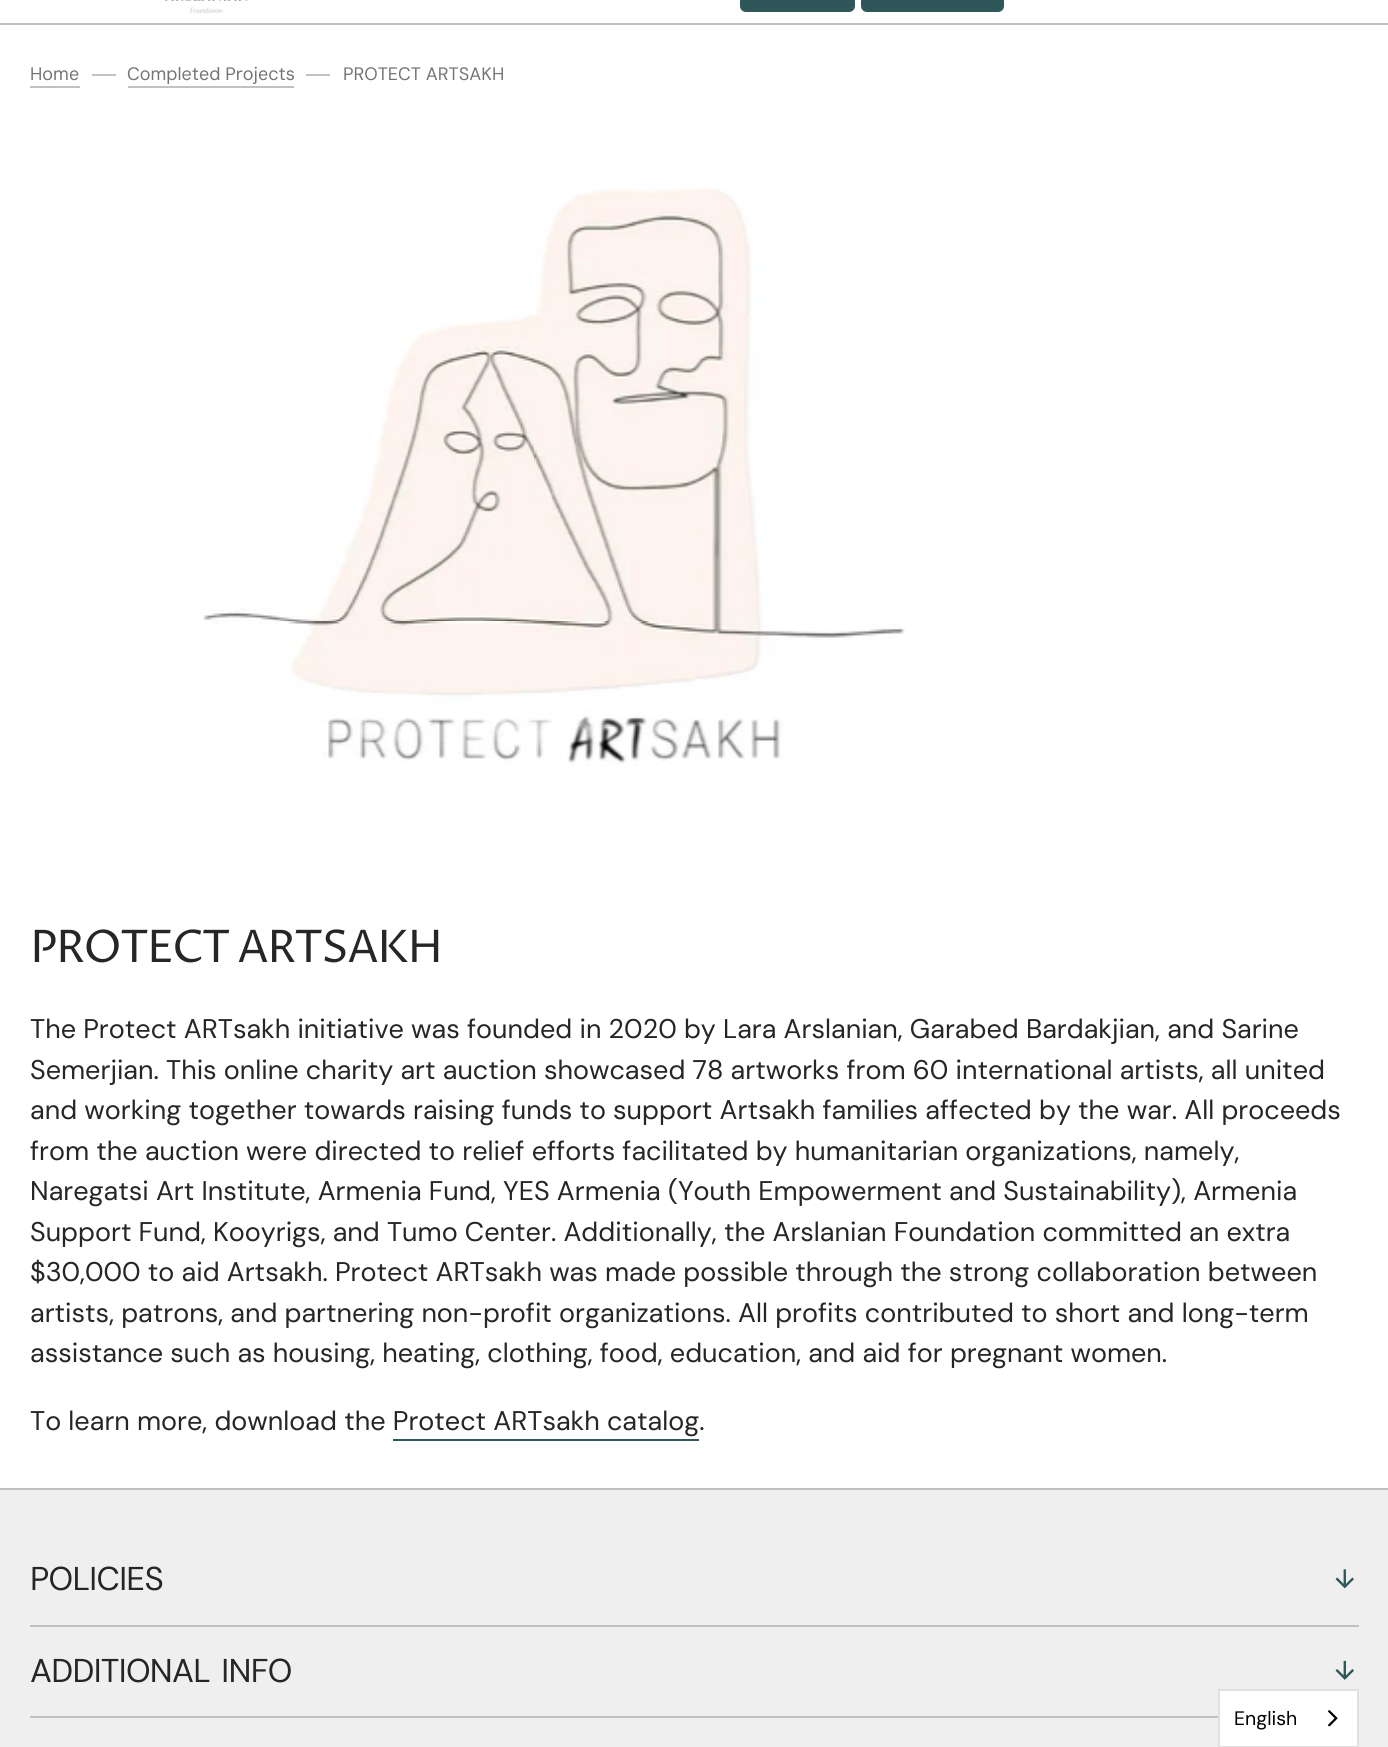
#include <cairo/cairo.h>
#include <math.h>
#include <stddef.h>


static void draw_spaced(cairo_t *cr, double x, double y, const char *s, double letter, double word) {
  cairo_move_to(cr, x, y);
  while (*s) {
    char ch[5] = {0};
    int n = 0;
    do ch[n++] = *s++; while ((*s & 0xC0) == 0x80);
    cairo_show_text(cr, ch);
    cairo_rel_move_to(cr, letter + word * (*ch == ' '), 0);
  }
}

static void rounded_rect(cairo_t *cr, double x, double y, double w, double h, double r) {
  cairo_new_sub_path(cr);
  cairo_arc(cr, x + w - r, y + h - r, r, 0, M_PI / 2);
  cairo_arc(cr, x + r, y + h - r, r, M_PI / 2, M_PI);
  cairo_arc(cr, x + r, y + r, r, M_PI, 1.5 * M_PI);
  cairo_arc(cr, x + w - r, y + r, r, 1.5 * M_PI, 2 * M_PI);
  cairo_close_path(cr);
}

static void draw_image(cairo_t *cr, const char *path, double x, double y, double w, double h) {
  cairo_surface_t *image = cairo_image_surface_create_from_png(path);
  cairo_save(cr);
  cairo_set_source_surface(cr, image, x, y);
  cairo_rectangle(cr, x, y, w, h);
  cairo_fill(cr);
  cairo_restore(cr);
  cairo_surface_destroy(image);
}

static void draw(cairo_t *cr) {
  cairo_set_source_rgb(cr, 1, 1, 1);
  cairo_paint(cr);
  draw_image(cr, "images/1.png", 165, 0, 83, 14);
  cairo_set_source_rgb(cr, 47 / 255.0, 87 / 255.0, 90 / 255.0);
  rounded_rect(cr, 740, -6, 115, 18, 6);
  cairo_fill(cr);
  rounded_rect(cr, 861, -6, 143, 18, 6);
  cairo_fill(cr);
  cairo_set_source_rgb(cr, 193 / 255.0, 193 / 255.0, 193 / 255.0);
  cairo_rectangle(cr, 0, 23, 1388, 2);
  cairo_fill(cr);
  cairo_rectangle(cr, 30, 86, 50, 2);
  cairo_fill(cr);
  cairo_rectangle(cr, 92, 74, 24, 2);
  cairo_fill(cr);
  cairo_rectangle(cr, 128, 86, 166, 2);
  cairo_fill(cr);
  cairo_rectangle(cr, 306, 74, 24, 2);
  cairo_fill(cr);
  draw_image(cr, "images/2.png", 203, 188, 702, 578);
  cairo_set_source_rgb(cr, 47 / 255.0, 87 / 255.0, 90 / 255.0);
  cairo_rectangle(cr, 393, 1439, 306, 2);
  cairo_fill(cr);
  cairo_set_source_rgb(cr, 239 / 255.0, 239 / 255.0, 239 / 255.0);
  cairo_rectangle(cr, 0, 1490, 1388, 257);
  cairo_fill(cr);
  cairo_set_source_rgb(cr, 193 / 255.0, 193 / 255.0, 193 / 255.0);
  cairo_rectangle(cr, 0, 1488, 1388, 2);
  cairo_fill(cr);
  cairo_rectangle(cr, 30, 1625, 1329, 2);
  cairo_fill(cr);
  draw_image(cr, "images/3.png", 1335, 1569, 19, 20);
  cairo_rectangle(cr, 30, 1716, 1188, 2);
  cairo_fill(cr);
  draw_image(cr, "images/4.png", 1335, 1660, 19, 20);
  cairo_set_source_rgb(cr, 1, 1, 1);
  cairo_rectangle(cr, 1219, 1690, 139, 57);
  cairo_fill_preserve(cr);
  cairo_set_source_rgb(cr, 224 / 255.0, 224 / 255.0, 224 / 255.0);
  cairo_stroke(cr);
  draw_image(cr, "images/5.png", 1328, 1710, 10, 17);
  cairo_select_font_face(cr, "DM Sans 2", CAIRO_FONT_SLANT_NORMAL, CAIRO_FONT_WEIGHT_NORMAL);
  cairo_set_font_size(cr, 18);
  cairo_set_source_rgb(cr, 116 / 255.0, 116 / 255.0, 116 / 255.0);
  cairo_move_to(cr, 30, 80);
  cairo_show_text(cr, "Home");
  cairo_move_to(cr, 127, 80);
  cairo_show_text(cr, "Completed Projects");
  cairo_move_to(cr, 343, 80);
  cairo_show_text(cr, "PROTECT ARTSAKH");
  cairo_select_font_face(cr, "Proza Libre", CAIRO_FONT_SLANT_NORMAL, CAIRO_FONT_WEIGHT_NORMAL);
  cairo_set_font_size(cr, 45);
  cairo_set_source_rgb(cr, 38 / 255.0, 38 / 255.0, 38 / 255.0);
  draw_spaced(cr, 30, 962, "PROTECT ARTSAKH", -1.75, 0);
  cairo_select_font_face(cr, "DM Sans", CAIRO_FONT_SLANT_NORMAL, CAIRO_FONT_WEIGHT_NORMAL);
  cairo_set_font_size(cr, 27);
  cairo_move_to(cr, 30, 1038);
  cairo_show_text(cr, "The Protect ARTsakh initiative was founded in 2020 by Lara Arslanian, Garabed Bardakjian, and Sarine");
  cairo_move_to(cr, 30, 1079);
  cairo_show_text(cr, "Semerjian. This online charity art auction showcased 78 artworks from 60 international artists, all united");
  cairo_move_to(cr, 30, 1119);
  cairo_show_text(cr, "and working together towards raising funds to support Artsakh families affected by the war. All proceeds");
  cairo_move_to(cr, 30, 1160);
  cairo_show_text(cr, "from the auction were directed to relief efforts facilitated by humanitarian organizations, namely,");
  cairo_move_to(cr, 30, 1200);
  cairo_show_text(cr, "Naregatsi Art Institute, Armenia Fund, YES Armenia (Youth Empowerment and Sustainability), Armenia");
  cairo_move_to(cr, 30, 1241);
  cairo_show_text(cr, "Support Fund, Kooyrigs, and Tumo Center. Additionally, the Arslanian Foundation committed an extra");
  cairo_move_to(cr, 30, 1281);
  cairo_show_text(cr, "$30,000 to aid Artsakh. Protect ARTsakh was made possible through the strong collaboration between");
  cairo_move_to(cr, 30, 1322);
  cairo_show_text(cr, "artists, patrons, and partnering non-profit organizations. All profits contributed to short and long-term");
  cairo_move_to(cr, 30, 1362);
  cairo_show_text(cr, "assistance such as housing, heating, clothing, food, education, and aid for pregnant women.");
  cairo_move_to(cr, 30, 1430);
  cairo_show_text(cr, "To learn more, download the Protect ARTsakh catalog.");
  cairo_select_font_face(cr, "DM Sans 2", CAIRO_FONT_SLANT_NORMAL, CAIRO_FONT_WEIGHT_NORMAL);
  cairo_set_font_size(cr, 33);
  draw_spaced(cr, 30, 1590, "POLICIES", -0.7, 0);
  draw_spaced(cr, 30, 1682, "ADDITIONAL INFO", -0.7, 3);
  cairo_select_font_face(cr, "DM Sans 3", CAIRO_FONT_SLANT_NORMAL, CAIRO_FONT_WEIGHT_NORMAL);
  cairo_set_font_size(cr, 19.5);
  cairo_set_source_rgb(cr, 0, 0, 0);
  cairo_move_to(cr, 1234, 1725);
  cairo_show_text(cr, "English");
}

int main(void) {
  cairo_surface_t *surface = cairo_image_surface_create(CAIRO_FORMAT_RGB24, 1388, 1747);
  cairo_t *cr = cairo_create(surface);
  cairo_font_options_t *options = cairo_font_options_create();
  cairo_font_options_set_hint_metrics(options, CAIRO_HINT_METRICS_OFF);
  cairo_font_options_set_hint_style(options, CAIRO_HINT_STYLE_NONE);
  cairo_set_font_options(cr, options);
  cairo_set_miter_limit(cr, 4);
  draw(cr);
  cairo_surface_write_to_png(surface, "out.png");
  cairo_font_options_destroy(options);
  cairo_destroy(cr);
  cairo_surface_destroy(surface);
  return 0;
}
